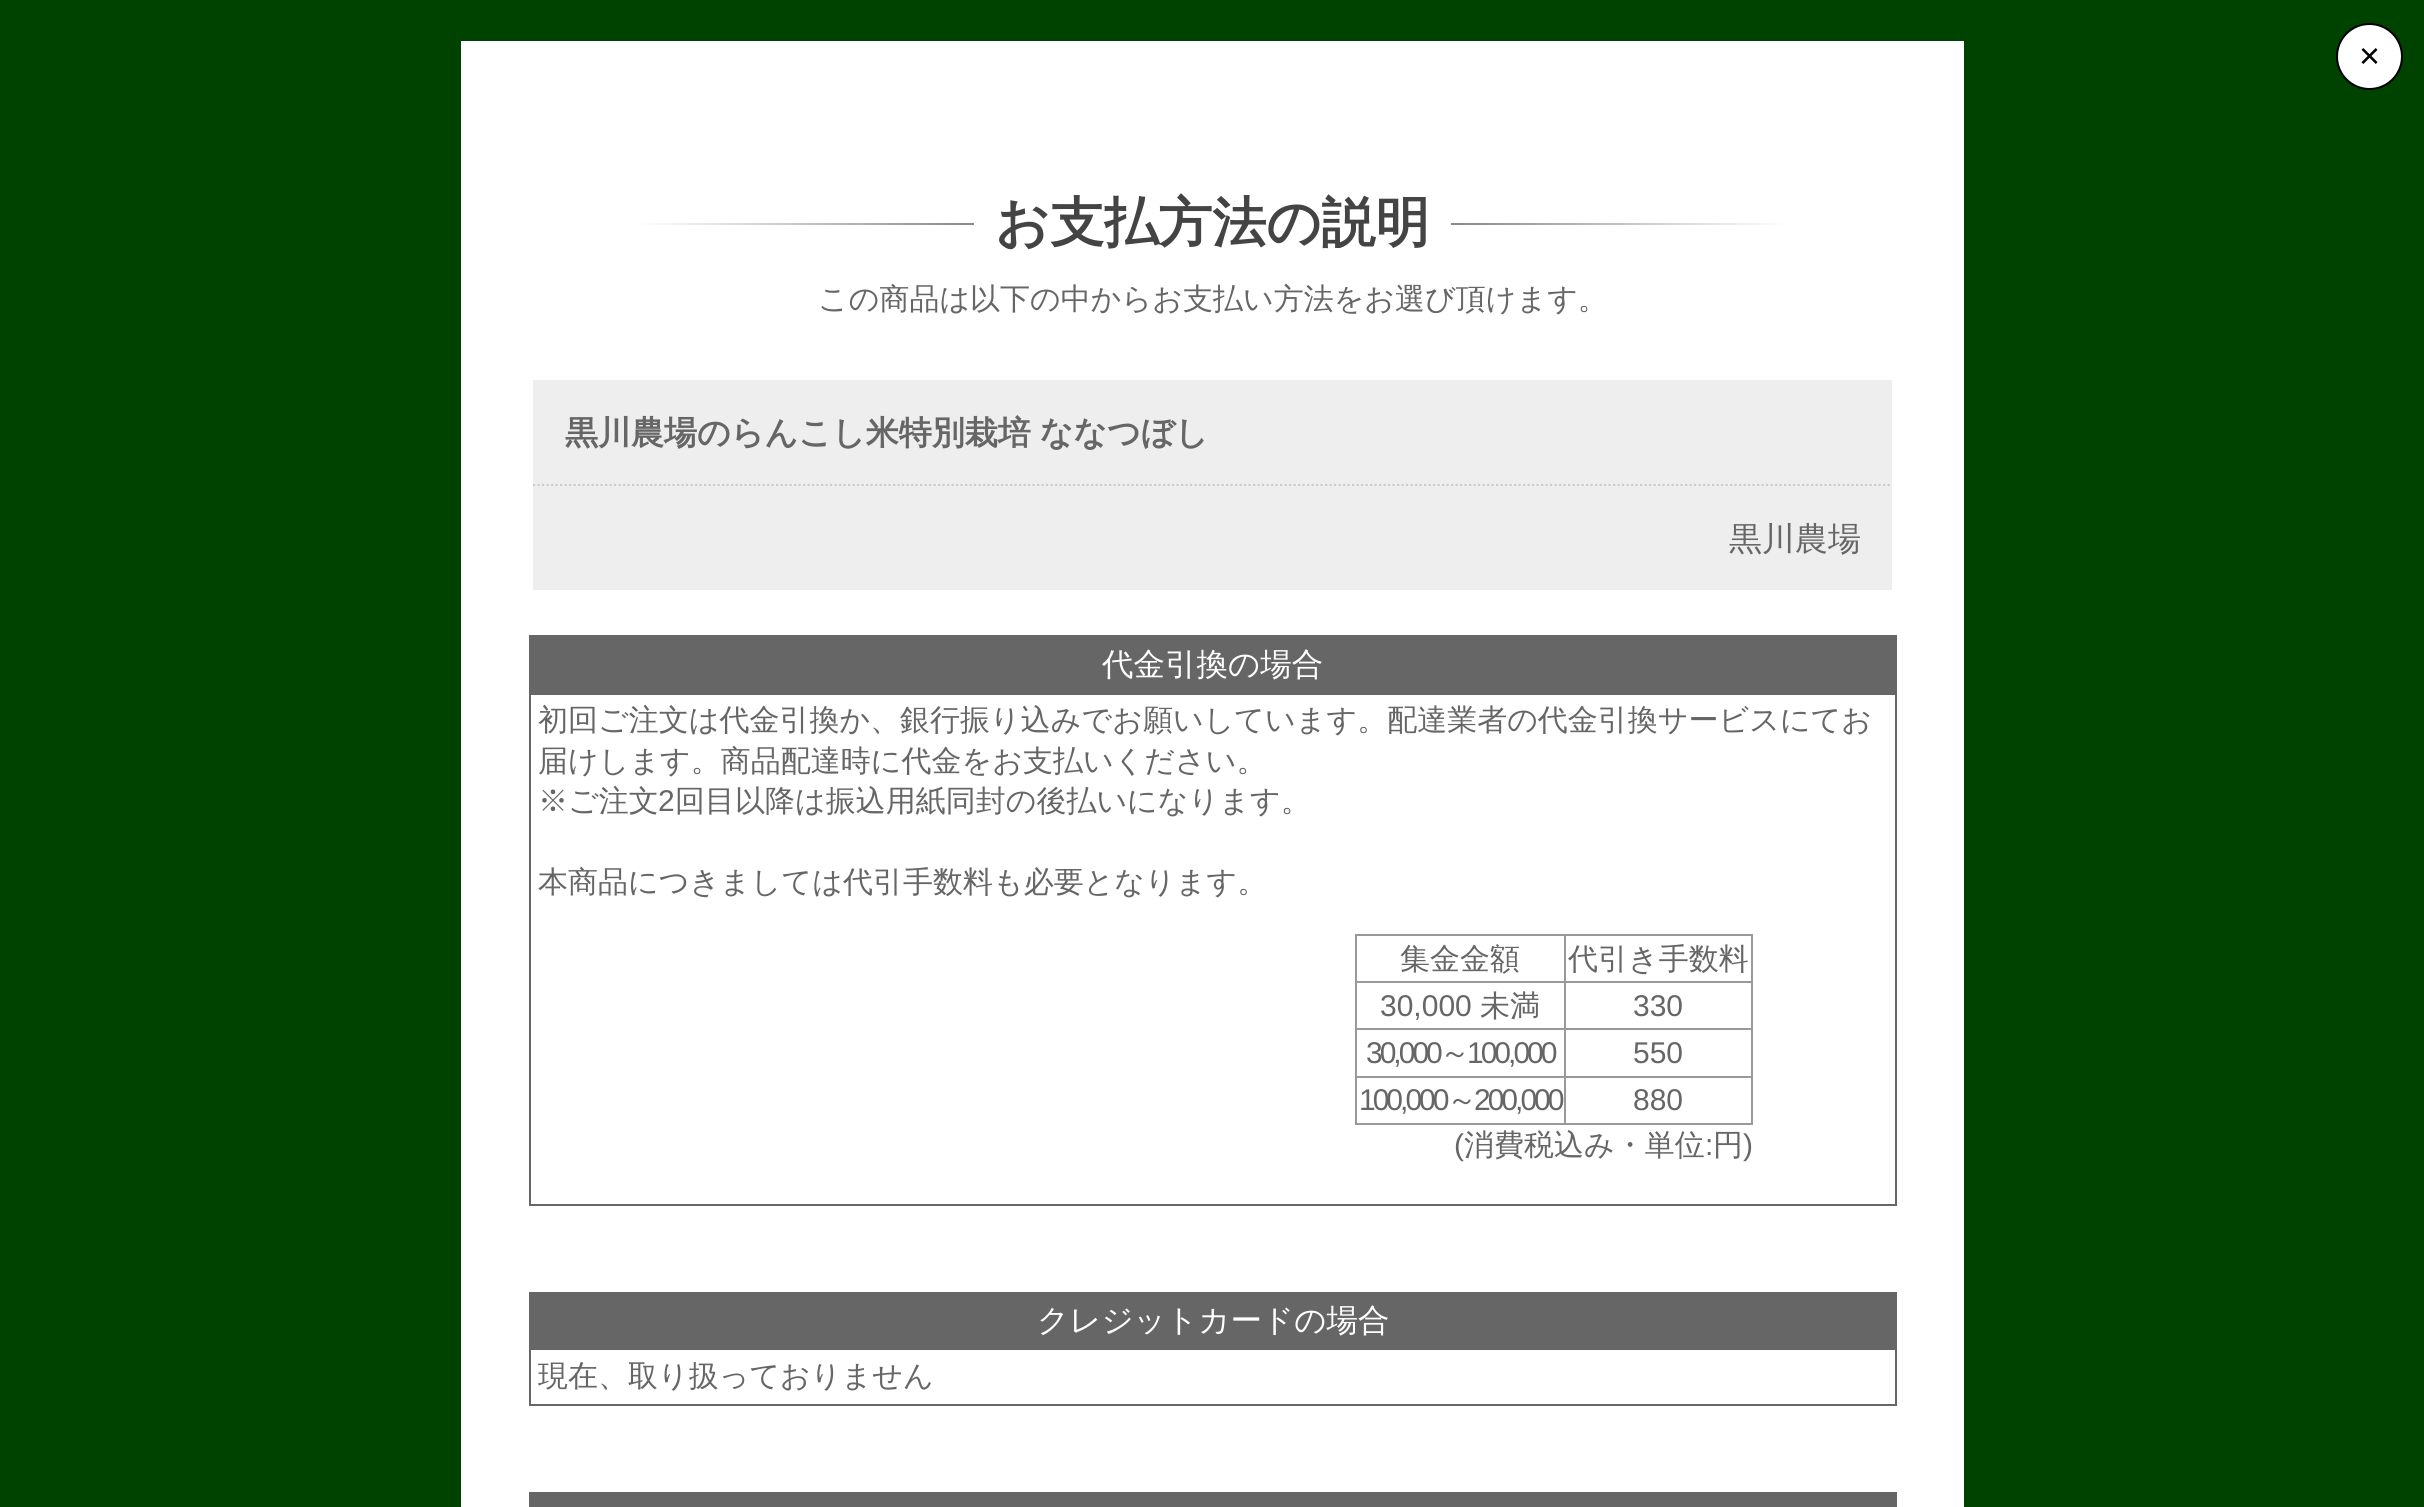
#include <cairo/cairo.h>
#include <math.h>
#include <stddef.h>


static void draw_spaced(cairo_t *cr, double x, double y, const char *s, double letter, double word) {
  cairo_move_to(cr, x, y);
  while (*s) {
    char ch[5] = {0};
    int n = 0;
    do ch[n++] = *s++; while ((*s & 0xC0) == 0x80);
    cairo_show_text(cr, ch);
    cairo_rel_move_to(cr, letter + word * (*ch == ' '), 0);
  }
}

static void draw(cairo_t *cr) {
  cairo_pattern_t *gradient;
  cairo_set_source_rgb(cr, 0, 66 / 255.0, 0);
  cairo_paint(cr);
  cairo_set_source_rgb(cr, 1, 1, 1);
  cairo_rectangle(cr, 461, 41, 1503, 1466);
  cairo_fill(cr);
  cairo_arc(cr, 2369.5, 56.5, 32.5, 0, 2 * M_PI);
  cairo_fill_preserve(cr);
  cairo_set_source_rgb(cr, 0, 0, 0);
  cairo_stroke(cr);
  gradient = cairo_pattern_create_linear(974, 224, 637, 224);
  cairo_pattern_add_color_stop_rgba(gradient, 0, 136 / 255.0, 136 / 255.0, 136 / 255.0, 1);
  cairo_pattern_add_color_stop_rgba(gradient, 1, 1, 1, 1, 1);
  cairo_set_source(cr, gradient);
  cairo_pattern_destroy(gradient);
  cairo_rectangle(cr, 637, 223, 337, 2);
  cairo_fill(cr);
  gradient = cairo_pattern_create_linear(1451, 224, 1789, 224);
  cairo_pattern_add_color_stop_rgba(gradient, 0, 136 / 255.0, 136 / 255.0, 136 / 255.0, 1);
  cairo_pattern_add_color_stop_rgba(gradient, 1, 1, 1, 1, 1);
  cairo_set_source(cr, gradient);
  cairo_pattern_destroy(gradient);
  cairo_rectangle(cr, 1451, 223, 338, 2);
  cairo_fill(cr);
  cairo_set_source_rgb(cr, 238 / 255.0, 238 / 255.0, 238 / 255.0);
  cairo_rectangle(cr, 533, 380, 1359, 106);
  cairo_fill(cr);
  cairo_new_path(cr);
  cairo_move_to(cr, 533, 485);
  cairo_line_to(cr, 1892, 485);
  cairo_set_source_rgb(cr, 204 / 255.0, 204 / 255.0, 204 / 255.0);
  cairo_set_line_width(cr, 2.2);
  cairo_set_dash(cr, (double[]){2.25, 2.25}, 2, 0);
  cairo_stroke(cr);
  cairo_set_source_rgb(cr, 238 / 255.0, 238 / 255.0, 238 / 255.0);
  cairo_rectangle(cr, 533, 486, 1359, 104);
  cairo_fill(cr);
  cairo_set_source_rgb(cr, 102 / 255.0, 102 / 255.0, 102 / 255.0);
  cairo_rectangle(cr, 529, 635, 1368, 58);
  cairo_fill(cr);
  cairo_rectangle(cr, 530, 694, 1366, 511);
  cairo_set_line_width(cr, 2);
  cairo_set_dash(cr, NULL, 0, 0);
  cairo_stroke(cr);
  cairo_set_source_rgb(cr, 153 / 255.0, 153 / 255.0, 153 / 255.0);
  cairo_rectangle(cr, 1564, 934, 189, 2);
  cairo_fill(cr);
  cairo_rectangle(cr, 1564, 981, 189, 2);
  cairo_fill(cr);
  cairo_rectangle(cr, 1564, 1028, 189, 2);
  cairo_fill(cr);
  cairo_rectangle(cr, 1564, 1076, 189, 2);
  cairo_fill(cr);
  cairo_rectangle(cr, 1751, 1076, 2, 49);
  cairo_fill(cr);
  cairo_rectangle(cr, 1564, 1123, 189, 2);
  cairo_fill(cr);
  cairo_rectangle(cr, 1564, 1076, 2, 49);
  cairo_fill(cr);
  cairo_rectangle(cr, 1355, 1076, 211, 2);
  cairo_fill(cr);
  cairo_rectangle(cr, 1564, 1028, 2, 50);
  cairo_fill(cr);
  cairo_rectangle(cr, 1355, 1028, 211, 2);
  cairo_fill(cr);
  cairo_rectangle(cr, 1564, 981, 2, 50);
  cairo_fill(cr);
  cairo_rectangle(cr, 1355, 981, 211, 2);
  cairo_fill(cr);
  cairo_rectangle(cr, 1564, 934, 2, 49);
  cairo_fill(cr);
  cairo_rectangle(cr, 1355, 934, 211, 2);
  cairo_fill(cr);
  cairo_rectangle(cr, 1355, 1123, 211, 2);
  cairo_fill(cr);
  cairo_rectangle(cr, 1355, 1076, 2, 49);
  cairo_fill(cr);
  cairo_rectangle(cr, 1355, 1028, 2, 50);
  cairo_fill(cr);
  cairo_rectangle(cr, 1355, 981, 2, 50);
  cairo_fill(cr);
  cairo_rectangle(cr, 1355, 934, 2, 49);
  cairo_fill(cr);
  cairo_rectangle(cr, 1751, 1028, 2, 50);
  cairo_fill(cr);
  cairo_rectangle(cr, 1751, 981, 2, 50);
  cairo_fill(cr);
  cairo_rectangle(cr, 1751, 934, 2, 49);
  cairo_fill(cr);
  cairo_set_source_rgb(cr, 102 / 255.0, 102 / 255.0, 102 / 255.0);
  cairo_rectangle(cr, 529, 1292, 1368, 56);
  cairo_fill(cr);
  cairo_rectangle(cr, 530, 1349, 1366, 56);
  cairo_stroke(cr);
  cairo_rectangle(cr, 529, 1492, 1368, 15);
  cairo_fill(cr);
  cairo_select_font_face(cr, "Liberation Sans", CAIRO_FONT_SLANT_NORMAL, CAIRO_FONT_WEIGHT_NORMAL);
  cairo_set_font_size(cr, 36);
  cairo_set_source_rgb(cr, 0, 0, 0);
  cairo_move_to(cr, 2359, 68);
  cairo_show_text(cr, "×");
  cairo_select_font_face(cr, "WenQuanYi Zen Hei", CAIRO_FONT_SLANT_NORMAL, CAIRO_FONT_WEIGHT_BOLD);
  cairo_set_font_size(cr, 54);
  cairo_set_source_rgb(cr, 68 / 255.0, 68 / 255.0, 68 / 255.0);
  cairo_move_to(cr, 995, 241);
  cairo_show_text(cr, "お支払方法の説明");
  cairo_select_font_face(cr, "WenQuanYi Zen Hei Medium", CAIRO_FONT_SLANT_NORMAL, CAIRO_FONT_WEIGHT_NORMAL);
  cairo_set_font_size(cr, 30);
  cairo_set_source_rgb(cr, 102 / 255.0, 102 / 255.0, 102 / 255.0);
  cairo_move_to(cr, 818, 309);
  cairo_show_text(cr, "この商品は以下の中からお支払い方法をお選び頂けます。");
  cairo_select_font_face(cr, "WenQuanYi Zen Hei", CAIRO_FONT_SLANT_NORMAL, CAIRO_FONT_WEIGHT_BOLD);
  cairo_set_font_size(cr, 33);
  draw_spaced(cr, 565, 444, "黒川農場のらんこし米特別栽培 ななつぼし", 0, -1);
  cairo_select_font_face(cr, "WenQuanYi Zen Hei Medium", CAIRO_FONT_SLANT_NORMAL, CAIRO_FONT_WEIGHT_NORMAL);
  cairo_move_to(cr, 1729, 550);
  cairo_show_text(cr, "黒川農場");
  cairo_set_font_size(cr, 31.5);
  cairo_set_source_rgb(cr, 1, 1, 1);
  cairo_move_to(cr, 1102, 675);
  cairo_show_text(cr, "代金引換の場合");
  cairo_set_font_size(cr, 30);
  cairo_set_source_rgb(cr, 102 / 255.0, 102 / 255.0, 102 / 255.0);
  cairo_move_to(cr, 538, 730);
  cairo_show_text(cr, "初回ご注文は代金引換か、銀行振り込みでお願いしています。配達業者の代金引換サービスにてお");
  cairo_move_to(cr, 538, 771);
  cairo_show_text(cr, "届けします。商品配達時に代金をお支払いください。");
  cairo_move_to(cr, 538, 811);
  cairo_show_text(cr, "※ご注文");
  cairo_select_font_face(cr, "Liberation Sans", CAIRO_FONT_SLANT_NORMAL, CAIRO_FONT_WEIGHT_NORMAL);
  cairo_move_to(cr, 658, 811);
  cairo_show_text(cr, "2");
  cairo_select_font_face(cr, "WenQuanYi Zen Hei Medium", CAIRO_FONT_SLANT_NORMAL, CAIRO_FONT_WEIGHT_NORMAL);
  cairo_move_to(cr, 675, 811);
  cairo_show_text(cr, "回目以降は振込用紙同封の後払いになります。");
  cairo_move_to(cr, 538, 892);
  cairo_show_text(cr, "本商品につきましては代引手数料も必要となります。");
  cairo_move_to(cr, 1400, 969);
  cairo_show_text(cr, "集金金額");
  cairo_move_to(cr, 1568, 969);
  cairo_show_text(cr, "代引き手数料");
  cairo_select_font_face(cr, "Liberation Sans", CAIRO_FONT_SLANT_NORMAL, CAIRO_FONT_WEIGHT_NORMAL);
  cairo_move_to(cr, 1380, 1016);
  cairo_show_text(cr, "30,000");
  cairo_select_font_face(cr, "WenQuanYi Zen Hei Medium", CAIRO_FONT_SLANT_NORMAL, CAIRO_FONT_WEIGHT_NORMAL);
  cairo_move_to(cr, 1480, 1016);
  cairo_show_text(cr, "未満");
  cairo_select_font_face(cr, "Liberation Sans", CAIRO_FONT_SLANT_NORMAL, CAIRO_FONT_WEIGHT_NORMAL);
  cairo_move_to(cr, 1633, 1016);
  cairo_show_text(cr, "330");
  draw_spaced(cr, 1366, 1063, "30,000", -3, 0);
  cairo_select_font_face(cr, "WenQuanYi Zen Hei Medium", CAIRO_FONT_SLANT_NORMAL, CAIRO_FONT_WEIGHT_NORMAL);
  draw_spaced(cr, 1440, 1063, "～", -3, 0);
  cairo_select_font_face(cr, "Liberation Sans", CAIRO_FONT_SLANT_NORMAL, CAIRO_FONT_WEIGHT_NORMAL);
  draw_spaced(cr, 1467, 1063, "100,000", -3, 0);
  cairo_move_to(cr, 1633, 1063);
  cairo_show_text(cr, "550");
  draw_spaced(cr, 1359, 1110, "100,000", -3, 0);
  cairo_select_font_face(cr, "WenQuanYi Zen Hei Medium", CAIRO_FONT_SLANT_NORMAL, CAIRO_FONT_WEIGHT_NORMAL);
  draw_spaced(cr, 1447, 1110, "～", -3, 0);
  cairo_select_font_face(cr, "Liberation Sans", CAIRO_FONT_SLANT_NORMAL, CAIRO_FONT_WEIGHT_NORMAL);
  draw_spaced(cr, 1474, 1110, "200,000", -3, 0);
  cairo_move_to(cr, 1633, 1110);
  cairo_show_text(cr, "880");
  cairo_move_to(cr, 1454, 1155);
  cairo_show_text(cr, "(");
  cairo_select_font_face(cr, "WenQuanYi Zen Hei Medium", CAIRO_FONT_SLANT_NORMAL, CAIRO_FONT_WEIGHT_NORMAL);
  cairo_move_to(cr, 1464, 1155);
  cairo_show_text(cr, "消費税込み・単位");
  cairo_select_font_face(cr, "Liberation Sans", CAIRO_FONT_SLANT_NORMAL, CAIRO_FONT_WEIGHT_NORMAL);
  cairo_move_to(cr, 1705, 1155);
  cairo_show_text(cr, ":");
  cairo_select_font_face(cr, "WenQuanYi Zen Hei Medium", CAIRO_FONT_SLANT_NORMAL, CAIRO_FONT_WEIGHT_NORMAL);
  cairo_move_to(cr, 1713, 1155);
  cairo_show_text(cr, "円");
  cairo_select_font_face(cr, "Liberation Sans", CAIRO_FONT_SLANT_NORMAL, CAIRO_FONT_WEIGHT_NORMAL);
  cairo_move_to(cr, 1743, 1155);
  cairo_show_text(cr, ")");
  cairo_select_font_face(cr, "WenQuanYi Zen Hei Medium", CAIRO_FONT_SLANT_NORMAL, CAIRO_FONT_WEIGHT_NORMAL);
  cairo_set_font_size(cr, 31.5);
  cairo_set_source_rgb(cr, 1, 1, 1);
  cairo_move_to(cr, 1037, 1331);
  cairo_show_text(cr, "クレジットカードの場合");
  cairo_set_font_size(cr, 30);
  cairo_set_source_rgb(cr, 102 / 255.0, 102 / 255.0, 102 / 255.0);
  cairo_move_to(cr, 538, 1386);
  cairo_show_text(cr, "現在、取り扱っておりません");
}

int main(void) {
  cairo_surface_t *surface = cairo_image_surface_create(CAIRO_FORMAT_RGB24, 2424, 1507);
  cairo_t *cr = cairo_create(surface);
  cairo_font_options_t *options = cairo_font_options_create();
  cairo_font_options_set_hint_metrics(options, CAIRO_HINT_METRICS_OFF);
  cairo_font_options_set_hint_style(options, CAIRO_HINT_STYLE_NONE);
  cairo_set_font_options(cr, options);
  cairo_set_miter_limit(cr, 4);
  draw(cr);
  cairo_surface_write_to_png(surface, "out.png");
  cairo_font_options_destroy(options);
  cairo_destroy(cr);
  cairo_surface_destroy(surface);
  return 0;
}
